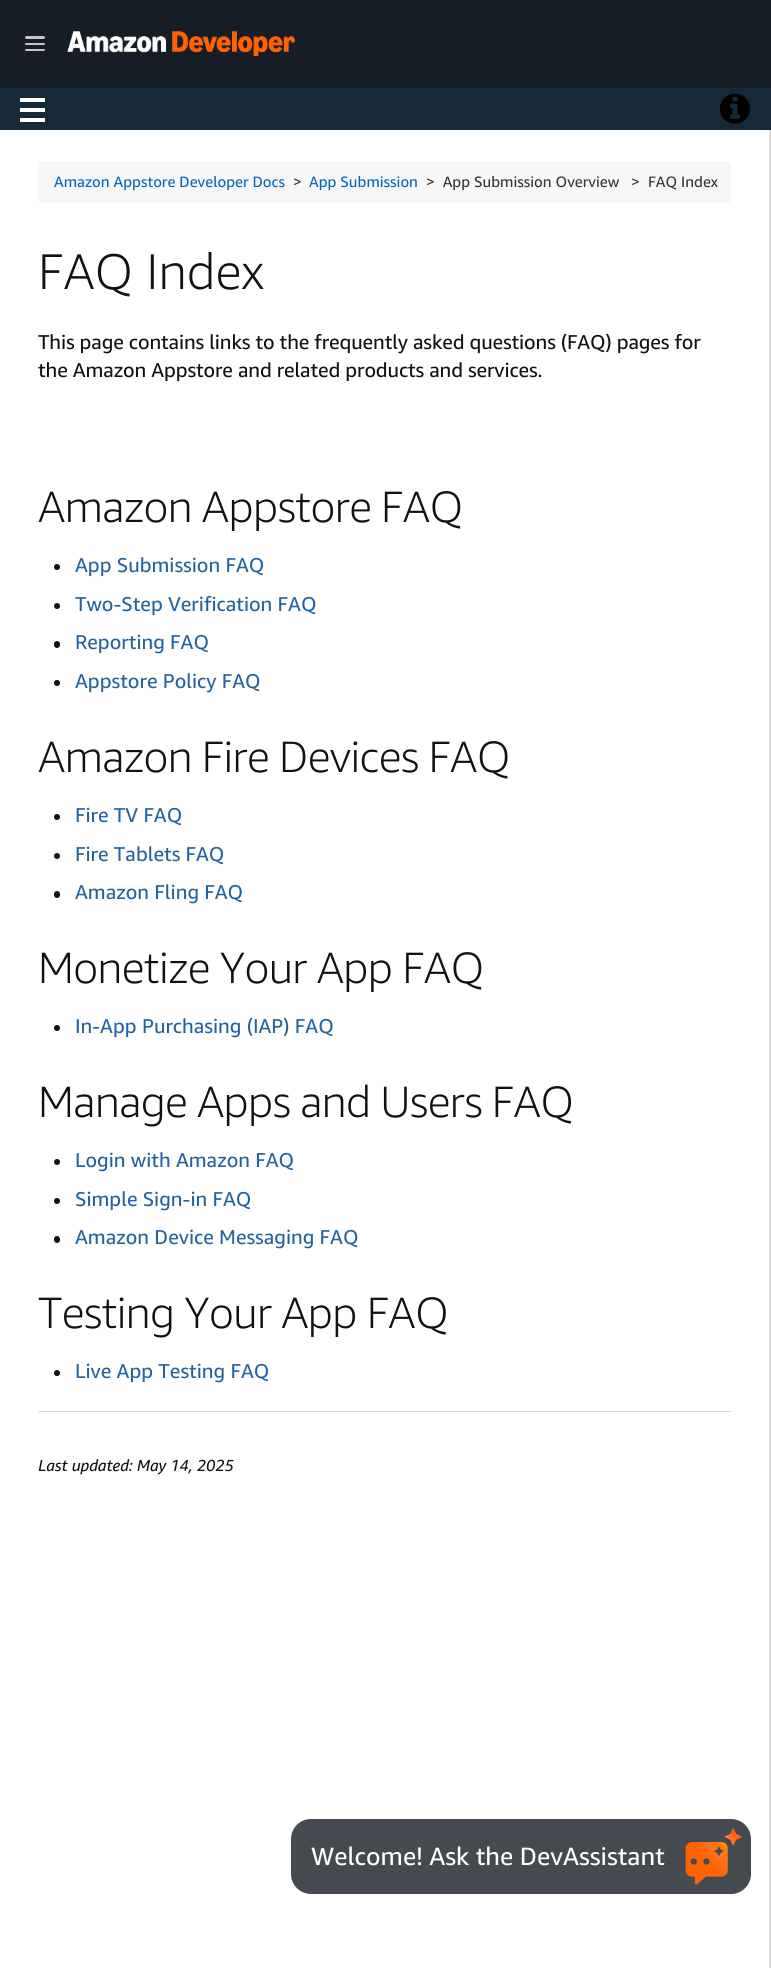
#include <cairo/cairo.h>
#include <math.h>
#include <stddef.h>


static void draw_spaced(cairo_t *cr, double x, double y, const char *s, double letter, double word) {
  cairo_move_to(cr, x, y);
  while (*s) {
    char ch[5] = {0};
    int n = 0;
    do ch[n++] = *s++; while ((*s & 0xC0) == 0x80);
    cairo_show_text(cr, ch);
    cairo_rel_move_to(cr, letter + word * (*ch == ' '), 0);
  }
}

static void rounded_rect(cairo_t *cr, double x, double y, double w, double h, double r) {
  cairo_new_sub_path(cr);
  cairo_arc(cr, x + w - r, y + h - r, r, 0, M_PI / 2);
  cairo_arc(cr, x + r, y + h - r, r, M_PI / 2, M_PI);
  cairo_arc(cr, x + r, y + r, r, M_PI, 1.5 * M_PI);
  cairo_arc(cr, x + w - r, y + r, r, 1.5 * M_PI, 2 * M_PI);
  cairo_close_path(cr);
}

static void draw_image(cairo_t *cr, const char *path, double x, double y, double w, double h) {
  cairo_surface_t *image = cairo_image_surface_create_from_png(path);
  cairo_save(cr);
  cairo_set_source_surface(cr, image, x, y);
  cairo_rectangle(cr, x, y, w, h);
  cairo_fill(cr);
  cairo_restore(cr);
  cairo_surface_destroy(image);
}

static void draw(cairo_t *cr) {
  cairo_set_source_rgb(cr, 21 / 255.0, 41 / 255.0, 57 / 255.0);
  cairo_paint(cr);
  cairo_set_source_rgb(cr, 22 / 255.0, 29 / 255.0, 38 / 255.0);
  cairo_rectangle(cr, 0, 0, 771, 88);
  cairo_fill(cr);
  cairo_set_source_rgb(cr, 197 / 255.0, 198 / 255.0, 201 / 255.0);
  rounded_rect(cr, 25, 36, 20, 3, 1.5);
  cairo_fill(cr);
  rounded_rect(cr, 25, 43, 20, 2, 1);
  cairo_fill(cr);
  rounded_rect(cr, 25, 49, 20, 2, 1);
  cairo_fill(cr);
  draw_image(cr, "images/1.png", 67, 31, 228, 26);
  cairo_set_source_rgb(cr, 1, 1, 1);
  cairo_rectangle(cr, 20, 98, 25, 4);
  cairo_fill(cr);
  cairo_rectangle(cr, 20, 108, 25, 4);
  cairo_fill(cr);
  cairo_rectangle(cr, 20, 118, 25, 4);
  cairo_fill(cr);
  draw_image(cr, "images/2.png", 720, 93, 30, 31);
  cairo_rectangle(cr, 0, 130, 769, 1838);
  cairo_fill(cr);
  cairo_set_source_rgb(cr, 247 / 255.0, 247 / 255.0, 247 / 255.0);
  rounded_rect(cr, 38, 161, 693, 42, 4);
  cairo_fill(cr);
  cairo_set_source_rgb(cr, 17 / 255.0, 17 / 255.0, 17 / 255.0);
  cairo_arc(cr, 57, 567, 3, 0, 2 * M_PI);
  cairo_fill(cr);
  cairo_arc(cr, 57, 606, 3, 0, 2 * M_PI);
  cairo_fill(cr);
  rounded_rect(cr, 54, 641, 6, 7, 3);
  cairo_fill(cr);
  cairo_arc(cr, 57, 683, 3, 0, 2 * M_PI);
  cairo_fill(cr);
  cairo_arc(cr, 57, 817, 3, 0, 2 * M_PI);
  cairo_fill(cr);
  cairo_arc(cr, 57, 856, 3, 0, 2 * M_PI);
  cairo_fill(cr);
  rounded_rect(cr, 54, 891, 6, 7, 3);
  cairo_fill(cr);
  cairo_arc(cr, 57, 1028, 3, 0, 2 * M_PI);
  cairo_fill(cr);
  cairo_arc(cr, 57, 1162, 3, 0, 2 * M_PI);
  cairo_fill(cr);
  cairo_arc(cr, 57, 1201, 3, 0, 2 * M_PI);
  cairo_fill(cr);
  rounded_rect(cr, 54, 1236, 6, 7, 3);
  cairo_fill(cr);
  cairo_arc(cr, 57, 1373, 3, 0, 2 * M_PI);
  cairo_fill(cr);
  cairo_set_source_rgb(cr, 219 / 255.0, 216 / 255.0, 216 / 255.0);
  cairo_rectangle(cr, 38, 1411, 693, 1);
  cairo_fill(cr);
  cairo_rectangle(cr, 769, 130, 2, 1838);
  cairo_fill(cr);
  cairo_set_source_rgb(cr, 69 / 255.0, 74 / 255.0, 81 / 255.0);
  rounded_rect(cr, 291, 1819, 460, 75, 20);
  cairo_fill(cr);
  draw_image(cr, "images/3.png", 685, 1828, 57, 57);
  cairo_select_font_face(cr, "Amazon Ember", CAIRO_FONT_SLANT_NORMAL, CAIRO_FONT_WEIGHT_NORMAL);
  cairo_set_font_size(cr, 15);
  cairo_set_source_rgb(cr, 0, 102 / 255.0, 192 / 255.0);
  cairo_move_to(cr, 54, 187);
  cairo_show_text(cr, "Amazon Appstore Developer Docs");
  cairo_set_source_rgb(cr, 51 / 255.0, 51 / 255.0, 51 / 255.0);
  cairo_move_to(cr, 293, 187);
  cairo_show_text(cr, ">");
  cairo_set_source_rgb(cr, 0, 102 / 255.0, 192 / 255.0);
  cairo_move_to(cr, 309, 187);
  cairo_show_text(cr, "App Submission");
  cairo_set_source_rgb(cr, 51 / 255.0, 51 / 255.0, 51 / 255.0);
  cairo_move_to(cr, 426, 187);
  cairo_show_text(cr, ">  App Submission Overview   >");
  cairo_move_to(cr, 648, 187);
  cairo_show_text(cr, "FAQ Index");
  cairo_select_font_face(cr, "Amazon Ember Light", CAIRO_FONT_SLANT_NORMAL, CAIRO_FONT_WEIGHT_NORMAL);
  cairo_set_font_size(cr, 50);
  cairo_set_source_rgb(cr, 17 / 255.0, 17 / 255.0, 17 / 255.0);
  cairo_move_to(cr, 38, 289);
  cairo_show_text(cr, "FAQ Index");
  cairo_select_font_face(cr, "Amazon Ember", CAIRO_FONT_SLANT_NORMAL, CAIRO_FONT_WEIGHT_NORMAL);
  cairo_set_font_size(cr, 20);
  draw_spaced(cr, 38, 349, "This page contains links to the frequently asked questions (FAQ) pages for", -0.12, 0);
  draw_spaced(cr, 38, 377, "the Amazon Appstore and related products and services.", -0.12, 0);
  cairo_select_font_face(cr, "Amazon Ember Light", CAIRO_FONT_SLANT_NORMAL, CAIRO_FONT_WEIGHT_NORMAL);
  cairo_set_font_size(cr, 43.75);
  draw_spaced(cr, 38, 522, "Amazon Appstore FAQ", -0.6, -1);
  cairo_select_font_face(cr, "Amazon Ember", CAIRO_FONT_SLANT_NORMAL, CAIRO_FONT_WEIGHT_NORMAL);
  cairo_set_font_size(cr, 20);
  cairo_set_source_rgb(cr, 33 / 255.0, 98 / 255.0, 161 / 255.0);
  cairo_move_to(cr, 75, 572);
  cairo_show_text(cr, "App Submission FAQ");
  cairo_move_to(cr, 75, 611);
  cairo_show_text(cr, "Two-Step Verification FAQ");
  cairo_move_to(cr, 75, 649);
  cairo_show_text(cr, "Reporting FAQ");
  cairo_move_to(cr, 75, 688);
  cairo_show_text(cr, "Appstore Policy FAQ");
  cairo_select_font_face(cr, "Amazon Ember Light", CAIRO_FONT_SLANT_NORMAL, CAIRO_FONT_WEIGHT_NORMAL);
  cairo_set_font_size(cr, 43.75);
  cairo_set_source_rgb(cr, 17 / 255.0, 17 / 255.0, 17 / 255.0);
  draw_spaced(cr, 38, 772, "Amazon Fire Devices FAQ", -0.6, -1);
  cairo_select_font_face(cr, "Amazon Ember", CAIRO_FONT_SLANT_NORMAL, CAIRO_FONT_WEIGHT_NORMAL);
  cairo_set_font_size(cr, 20);
  cairo_set_source_rgb(cr, 33 / 255.0, 98 / 255.0, 161 / 255.0);
  cairo_move_to(cr, 75, 822);
  cairo_show_text(cr, "Fire TV FAQ");
  cairo_move_to(cr, 75, 861);
  cairo_show_text(cr, "Fire Tablets FAQ");
  cairo_move_to(cr, 75, 899);
  cairo_show_text(cr, "Amazon Fling FAQ");
  cairo_select_font_face(cr, "Amazon Ember Light", CAIRO_FONT_SLANT_NORMAL, CAIRO_FONT_WEIGHT_NORMAL);
  cairo_set_font_size(cr, 43.75);
  cairo_set_source_rgb(cr, 17 / 255.0, 17 / 255.0, 17 / 255.0);
  draw_spaced(cr, 38, 983, "Monetize Your App FAQ", -0.6, -1);
  cairo_select_font_face(cr, "Amazon Ember", CAIRO_FONT_SLANT_NORMAL, CAIRO_FONT_WEIGHT_NORMAL);
  cairo_set_font_size(cr, 20);
  cairo_set_source_rgb(cr, 33 / 255.0, 98 / 255.0, 161 / 255.0);
  cairo_move_to(cr, 75, 1033);
  cairo_show_text(cr, "In-App Purchasing (IAP) FAQ");
  cairo_select_font_face(cr, "Amazon Ember Light", CAIRO_FONT_SLANT_NORMAL, CAIRO_FONT_WEIGHT_NORMAL);
  cairo_set_font_size(cr, 43.75);
  cairo_set_source_rgb(cr, 17 / 255.0, 17 / 255.0, 17 / 255.0);
  draw_spaced(cr, 38, 1117, "Manage Apps and Users FAQ", -0.6, -1);
  cairo_select_font_face(cr, "Amazon Ember", CAIRO_FONT_SLANT_NORMAL, CAIRO_FONT_WEIGHT_NORMAL);
  cairo_set_font_size(cr, 20);
  cairo_set_source_rgb(cr, 33 / 255.0, 98 / 255.0, 161 / 255.0);
  cairo_move_to(cr, 75, 1167);
  cairo_show_text(cr, "Login with Amazon FAQ");
  cairo_move_to(cr, 75, 1206);
  cairo_show_text(cr, "Simple Sign-in FAQ");
  cairo_move_to(cr, 75, 1244);
  cairo_show_text(cr, "Amazon Device Messaging FAQ");
  cairo_select_font_face(cr, "Amazon Ember Light", CAIRO_FONT_SLANT_NORMAL, CAIRO_FONT_WEIGHT_NORMAL);
  cairo_set_font_size(cr, 43.75);
  cairo_set_source_rgb(cr, 17 / 255.0, 17 / 255.0, 17 / 255.0);
  draw_spaced(cr, 38, 1328, "Testing Your App FAQ", -0.6, -1);
  cairo_select_font_face(cr, "Amazon Ember", CAIRO_FONT_SLANT_NORMAL, CAIRO_FONT_WEIGHT_NORMAL);
  cairo_set_font_size(cr, 20);
  cairo_set_source_rgb(cr, 33 / 255.0, 98 / 255.0, 161 / 255.0);
  cairo_move_to(cr, 75, 1378);
  cairo_show_text(cr, "Live App Testing FAQ");
  cairo_select_font_face(cr, "Amazon Ember", CAIRO_FONT_SLANT_ITALIC, CAIRO_FONT_WEIGHT_NORMAL);
  cairo_set_font_size(cr, 16);
  cairo_set_source_rgb(cr, 17 / 255.0, 17 / 255.0, 17 / 255.0);
  draw_spaced(cr, 38, 1471, "Last updated: May 14, 2025", -0.12, 0);
  cairo_select_font_face(cr, "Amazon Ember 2", CAIRO_FONT_SLANT_NORMAL, CAIRO_FONT_WEIGHT_NORMAL);
  cairo_set_font_size(cr, 25);
  cairo_set_source_rgb(cr, 1, 1, 1);
  cairo_move_to(cr, 311, 1865);
  cairo_show_text(cr, "Welcome! Ask the DevAssistant");
}

int main(void) {
  cairo_surface_t *surface = cairo_image_surface_create(CAIRO_FORMAT_RGB24, 771, 1968);
  cairo_t *cr = cairo_create(surface);
  cairo_font_options_t *options = cairo_font_options_create();
  cairo_font_options_set_hint_metrics(options, CAIRO_HINT_METRICS_OFF);
  cairo_font_options_set_hint_style(options, CAIRO_HINT_STYLE_NONE);
  cairo_set_font_options(cr, options);
  cairo_set_miter_limit(cr, 4);
  draw(cr);
  cairo_surface_write_to_png(surface, "out.png");
  cairo_font_options_destroy(options);
  cairo_destroy(cr);
  cairo_surface_destroy(surface);
  return 0;
}
